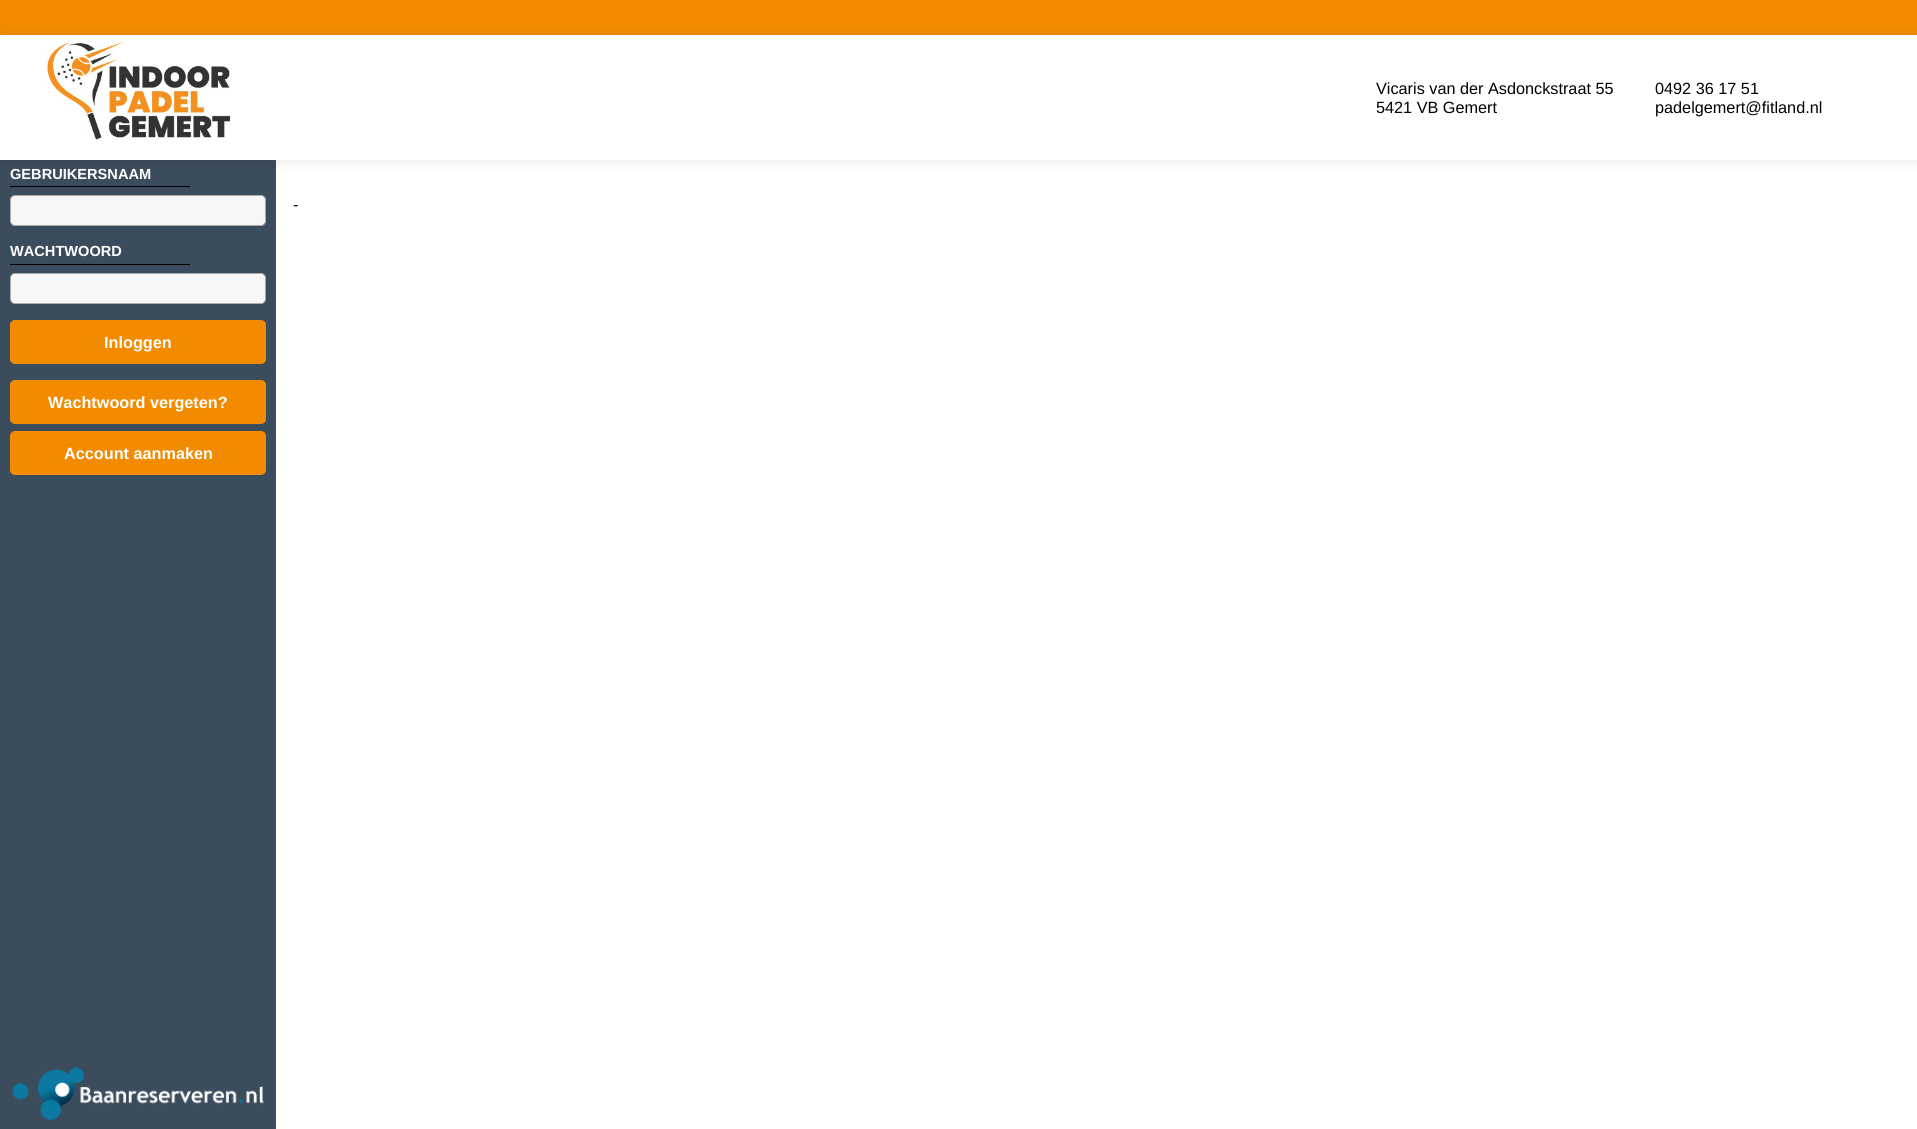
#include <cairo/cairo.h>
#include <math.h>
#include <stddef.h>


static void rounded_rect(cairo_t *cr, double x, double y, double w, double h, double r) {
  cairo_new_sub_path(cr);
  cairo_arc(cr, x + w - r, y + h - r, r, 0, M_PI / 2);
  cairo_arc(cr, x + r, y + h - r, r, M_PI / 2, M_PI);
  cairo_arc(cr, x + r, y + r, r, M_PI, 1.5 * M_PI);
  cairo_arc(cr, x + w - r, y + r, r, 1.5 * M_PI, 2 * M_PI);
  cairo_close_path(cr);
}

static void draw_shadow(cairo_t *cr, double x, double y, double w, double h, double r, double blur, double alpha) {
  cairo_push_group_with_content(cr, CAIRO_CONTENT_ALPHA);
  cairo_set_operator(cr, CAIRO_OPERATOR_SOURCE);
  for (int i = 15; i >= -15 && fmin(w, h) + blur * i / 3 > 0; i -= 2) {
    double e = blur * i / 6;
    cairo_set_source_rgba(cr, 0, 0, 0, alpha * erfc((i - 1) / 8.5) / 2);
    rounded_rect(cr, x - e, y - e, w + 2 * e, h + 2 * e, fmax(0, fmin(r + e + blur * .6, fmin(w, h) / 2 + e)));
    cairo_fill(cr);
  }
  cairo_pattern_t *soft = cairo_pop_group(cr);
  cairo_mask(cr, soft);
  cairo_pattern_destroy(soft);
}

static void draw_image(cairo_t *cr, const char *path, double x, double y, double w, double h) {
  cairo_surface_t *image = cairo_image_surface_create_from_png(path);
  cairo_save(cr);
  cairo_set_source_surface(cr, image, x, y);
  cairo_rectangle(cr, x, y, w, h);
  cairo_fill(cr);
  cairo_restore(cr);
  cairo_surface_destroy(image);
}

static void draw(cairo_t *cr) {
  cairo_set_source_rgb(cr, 1, 1, 1);
  cairo_paint(cr);
  cairo_set_source_rgb(cr, 243 / 255.0, 139 / 255.0, 0);
  cairo_rectangle(cr, 0, 0, 1917, 35);
  cairo_fill(cr);
  cairo_set_source_rgb(cr, 59 / 255.0, 76 / 255.0, 93 / 255.0);
  cairo_rectangle(cr, 0, 160, 276, 969);
  cairo_fill(cr);
  cairo_save(cr);
  cairo_set_fill_rule(cr, CAIRO_FILL_RULE_EVEN_ODD);
  cairo_new_path(cr);
  cairo_move_to(cr, 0, 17);
  cairo_line_to(cr, 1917, 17);
  cairo_line_to(cr, 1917, 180);
  cairo_line_to(cr, 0, 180);
  cairo_close_path(cr);
  cairo_move_to(cr, 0, 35);
  cairo_line_to(cr, 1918, 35);
  cairo_line_to(cr, 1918, 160);
  cairo_line_to(cr, 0, 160);
  cairo_close_path(cr);
  cairo_clip(cr);
  cairo_set_source_rgb(cr, 0, 0, 0);
  draw_shadow(cr, 1, 36, 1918, 125, 0, 6, 0.1);
  cairo_restore(cr);
  draw_image(cr, "images/1.png", 47, 40, 185, 100);
  cairo_set_source_rgb(cr, 0, 0, 0);
  cairo_rectangle(cr, 10, 186, 180, 1);
  cairo_fill(cr);
  cairo_set_source_rgb(cr, 247 / 255.0, 247 / 255.0, 247 / 255.0);
  rounded_rect(cr, 10.5, 195.5, 255, 30, 4.5);
  cairo_fill_preserve(cr);
  cairo_set_source_rgb(cr, 170 / 255.0, 170 / 255.0, 170 / 255.0);
  cairo_set_line_width(cr, 1);
  cairo_stroke(cr);
  cairo_set_source_rgb(cr, 0, 0, 0);
  cairo_rectangle(cr, 10, 264, 180, 1);
  cairo_fill(cr);
  cairo_set_source_rgb(cr, 247 / 255.0, 247 / 255.0, 247 / 255.0);
  rounded_rect(cr, 10.5, 273.5, 255, 30, 4.5);
  cairo_fill_preserve(cr);
  cairo_set_source_rgb(cr, 170 / 255.0, 170 / 255.0, 170 / 255.0);
  cairo_stroke(cr);
  cairo_set_source_rgb(cr, 243 / 255.0, 139 / 255.0, 0);
  rounded_rect(cr, 10, 320, 256, 44, 5);
  cairo_fill(cr);
  rounded_rect(cr, 10, 380, 256, 44, 5);
  cairo_fill(cr);
  rounded_rect(cr, 10, 431, 256, 44, 5);
  cairo_fill(cr);
  draw_image(cr, "images/2.png", 12, 1067, 252, 53);
  cairo_select_font_face(cr, "Liberation Sans", CAIRO_FONT_SLANT_NORMAL, CAIRO_FONT_WEIGHT_NORMAL);
  cairo_set_font_size(cr, 16.25);
  cairo_set_source_rgb(cr, 0, 0, 0);
  cairo_move_to(cr, 1376, 94);
  cairo_show_text(cr, "Vicaris van der Asdonckstraat 55");
  cairo_move_to(cr, 1655, 94);
  cairo_show_text(cr, "0492 36 17 51");
  cairo_move_to(cr, 1376, 113);
  cairo_show_text(cr, "5421 VB Gemert");
  cairo_move_to(cr, 1655, 113);
  cairo_show_text(cr, "padelgemert@fitland.nl");
  cairo_select_font_face(cr, "Liberation Sans", CAIRO_FONT_SLANT_NORMAL, CAIRO_FONT_WEIGHT_BOLD);
  cairo_set_font_size(cr, 14.6);
  cairo_set_source_rgb(cr, 1, 1, 1);
  cairo_move_to(cr, 10, 179);
  cairo_show_text(cr, "GEBRUIKERSNAAM");
  cairo_move_to(cr, 10, 256);
  cairo_show_text(cr, "WACHTWOORD");
  cairo_set_font_size(cr, 16.25);
  cairo_move_to(cr, 104, 348);
  cairo_show_text(cr, "Inloggen");
  cairo_move_to(cr, 48, 408);
  cairo_show_text(cr, "Wachtwoord vergeten?");
  cairo_move_to(cr, 64, 459);
  cairo_show_text(cr, "Account aanmaken");
  cairo_select_font_face(cr, "Liberation Sans", CAIRO_FONT_SLANT_NORMAL, CAIRO_FONT_WEIGHT_NORMAL);
  cairo_set_source_rgb(cr, 0, 0, 0);
  cairo_move_to(cr, 293, 210);
  cairo_show_text(cr, "-");
}

int main(void) {
  cairo_surface_t *surface = cairo_image_surface_create(CAIRO_FORMAT_RGB24, 1917, 1129);
  cairo_t *cr = cairo_create(surface);
  cairo_font_options_t *options = cairo_font_options_create();
  cairo_font_options_set_hint_metrics(options, CAIRO_HINT_METRICS_OFF);
  cairo_font_options_set_hint_style(options, CAIRO_HINT_STYLE_NONE);
  cairo_set_font_options(cr, options);
  cairo_set_miter_limit(cr, 4);
  draw(cr);
  cairo_surface_write_to_png(surface, "out.png");
  cairo_font_options_destroy(options);
  cairo_destroy(cr);
  cairo_surface_destroy(surface);
  return 0;
}
